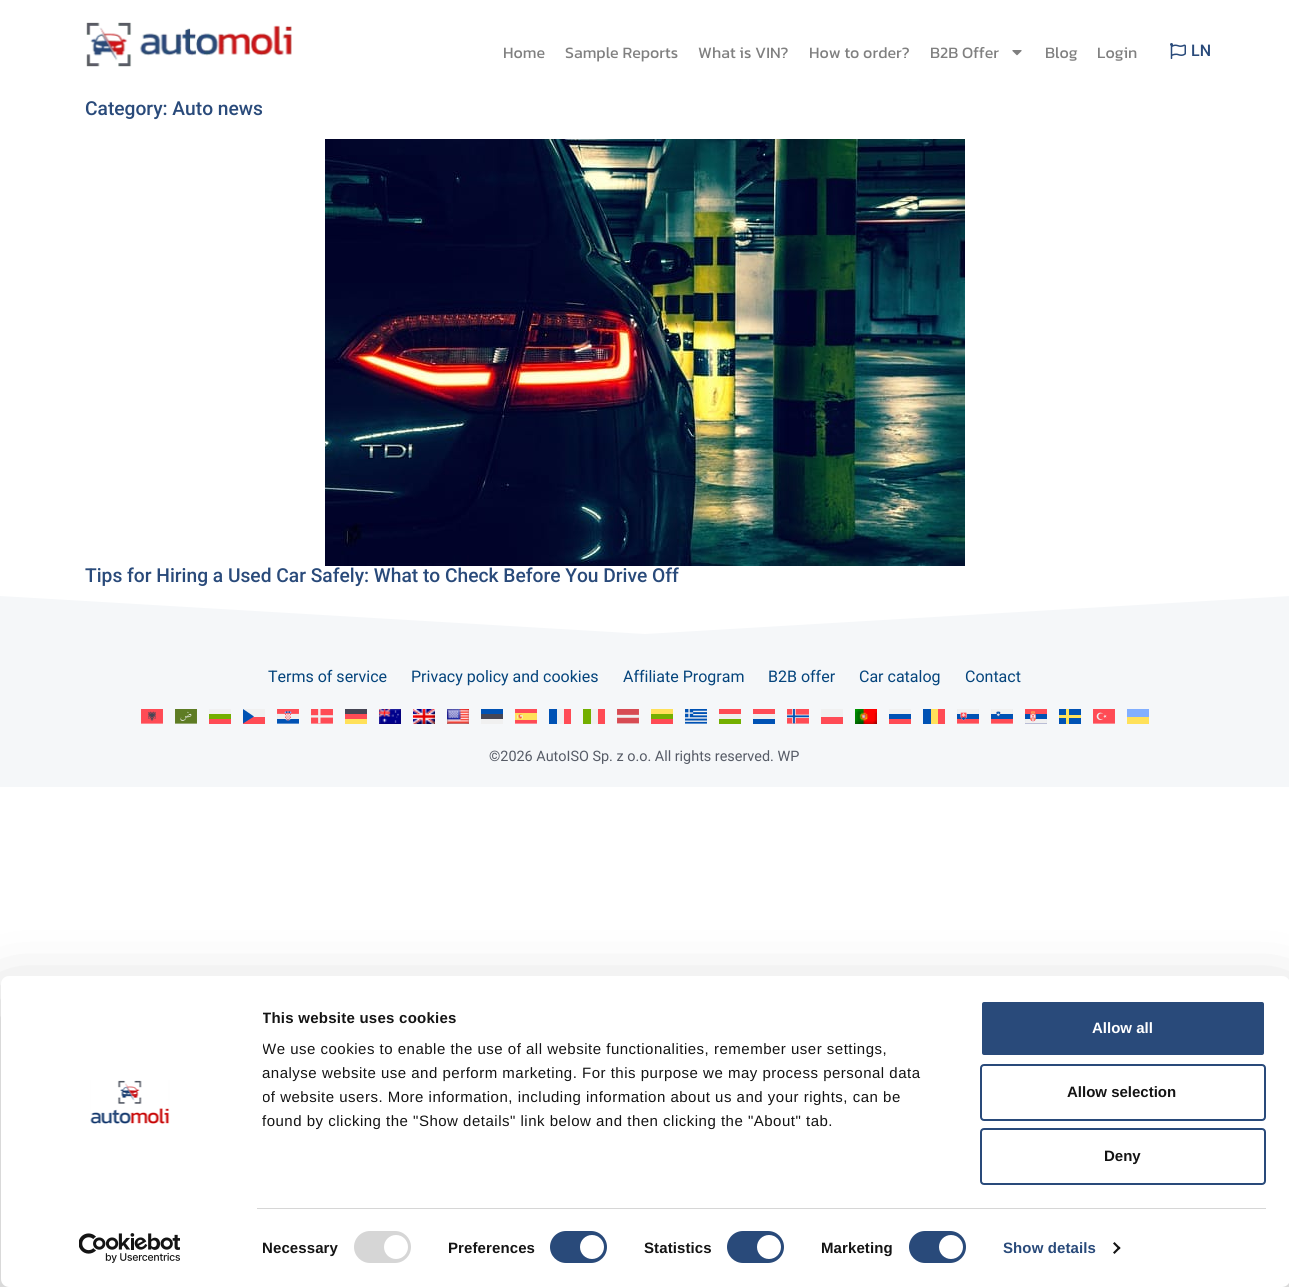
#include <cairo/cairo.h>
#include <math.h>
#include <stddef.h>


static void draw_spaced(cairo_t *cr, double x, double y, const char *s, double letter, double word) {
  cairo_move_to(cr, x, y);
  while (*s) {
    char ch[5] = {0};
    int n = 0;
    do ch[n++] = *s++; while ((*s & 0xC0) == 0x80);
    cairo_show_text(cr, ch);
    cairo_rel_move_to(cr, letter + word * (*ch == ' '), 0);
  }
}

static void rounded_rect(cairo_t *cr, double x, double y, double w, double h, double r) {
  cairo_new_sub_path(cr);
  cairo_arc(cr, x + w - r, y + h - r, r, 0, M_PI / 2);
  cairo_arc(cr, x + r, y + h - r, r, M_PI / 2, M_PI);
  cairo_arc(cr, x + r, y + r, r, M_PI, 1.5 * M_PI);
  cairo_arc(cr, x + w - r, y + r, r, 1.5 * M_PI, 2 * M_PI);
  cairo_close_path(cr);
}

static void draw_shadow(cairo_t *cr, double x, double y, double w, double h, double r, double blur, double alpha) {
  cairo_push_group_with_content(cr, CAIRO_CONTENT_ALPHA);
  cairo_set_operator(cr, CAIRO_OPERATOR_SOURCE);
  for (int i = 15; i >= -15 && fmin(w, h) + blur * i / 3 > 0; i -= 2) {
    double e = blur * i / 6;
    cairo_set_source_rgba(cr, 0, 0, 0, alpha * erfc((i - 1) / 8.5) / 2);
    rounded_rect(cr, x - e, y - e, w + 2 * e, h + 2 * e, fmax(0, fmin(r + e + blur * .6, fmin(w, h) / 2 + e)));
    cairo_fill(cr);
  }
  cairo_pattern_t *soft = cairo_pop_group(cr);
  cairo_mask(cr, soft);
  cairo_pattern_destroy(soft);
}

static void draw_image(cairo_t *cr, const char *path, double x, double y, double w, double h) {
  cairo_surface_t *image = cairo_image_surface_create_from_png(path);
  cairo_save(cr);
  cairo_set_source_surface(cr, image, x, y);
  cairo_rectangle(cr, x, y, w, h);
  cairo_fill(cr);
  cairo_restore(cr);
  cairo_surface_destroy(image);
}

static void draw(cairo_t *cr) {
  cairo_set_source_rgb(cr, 1, 1, 1);
  cairo_paint(cr);
  draw_image(cr, "images/1.png", 86, 22, 206, 45);
  draw_image(cr, "images/2.png", 1012, 50, 10, 6);
  draw_image(cr, "images/3.png", 1170, 43, 16, 16);
  draw_image(cr, "images/4.png", 325, 139, 640, 427);
  cairo_set_source_rgb(cr, 245 / 255.0, 247 / 255.0, 249 / 255.0);
  cairo_rectangle(cr, 0, 596, 1289, 191);
  cairo_fill(cr);
  cairo_set_source_rgb(cr, 1, 1, 1);
  cairo_new_path(cr);
  cairo_move_to(cr, 645, 634);
  cairo_line_to(cr, 0, 596);
  cairo_line_to(cr, 0, 594);
  cairo_line_to(cr, 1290, 594);
  cairo_line_to(cr, 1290, 596);
  cairo_close_path(cr);
  cairo_fill(cr);
  draw_image(cr, "images/5.png", 141, 709, 22, 15);
  draw_image(cr, "images/6.png", 175, 709, 22, 15);
  cairo_set_source_rgb(cr, 115 / 255.0, 175 / 255.0, 0);
  cairo_rectangle(cr, 209, 714, 22, 5);
  cairo_fill(cr);
  cairo_set_source_rgb(cr, 1, 75 / 255.0, 85 / 255.0);
  cairo_rectangle(cr, 209, 719, 22, 5);
  cairo_fill(cr);
  cairo_set_source_rgb(cr, 240 / 255.0, 240 / 255.0, 240 / 255.0);
  cairo_rectangle(cr, 209, 709, 22, 5);
  cairo_fill(cr);
  cairo_set_source_rgb(cr, 1, 75 / 255.0, 85 / 255.0);
  cairo_rectangle(cr, 243, 717, 22, 7);
  cairo_fill(cr);
  cairo_set_source_rgb(cr, 240 / 255.0, 240 / 255.0, 240 / 255.0);
  cairo_rectangle(cr, 243, 709, 22, 8);
  cairo_fill(cr);
  cairo_set_source_rgb(cr, 0, 82 / 255.0, 180 / 255.0);
  cairo_new_path(cr);
  cairo_move_to(cr, 254, 716.5);
  cairo_line_to(cr, 243, 709);
  cairo_line_to(cr, 243, 723.5);
  cairo_close_path(cr);
  cairo_fill(cr);
  draw_image(cr, "images/7.png", 277, 709, 22, 15);
  draw_image(cr, "images/8.png", 311, 709, 22, 15);
  cairo_set_source_rgb(cr, 1, 75 / 255.0, 85 / 255.0);
  cairo_rectangle(cr, 345, 714, 22, 5);
  cairo_fill(cr);
  cairo_set_source_rgb(cr, 1, 225 / 255.0, 90 / 255.0);
  cairo_rectangle(cr, 345, 719, 22, 5);
  cairo_fill(cr);
  cairo_set_source_rgb(cr, 70 / 255.0, 70 / 255.0, 85 / 255.0);
  cairo_rectangle(cr, 345, 709, 22, 5);
  cairo_fill(cr);
  draw_image(cr, "images/9.png", 379, 709, 22, 15);
  draw_image(cr, "images/10.png", 413, 709, 22, 15);
  draw_image(cr, "images/11.png", 447, 709, 22, 15);
  cairo_rectangle(cr, 481, 714, 22, 5);
  cairo_fill(cr);
  cairo_set_source_rgb(cr, 240 / 255.0, 240 / 255.0, 240 / 255.0);
  cairo_rectangle(cr, 481, 719, 22, 5);
  cairo_fill(cr);
  cairo_set_source_rgb(cr, 0, 82 / 255.0, 180 / 255.0);
  cairo_rectangle(cr, 481, 709, 22, 5);
  cairo_fill(cr);
  draw_image(cr, "images/12.png", 515, 709, 22, 15);
  cairo_set_source_rgb(cr, 240 / 255.0, 240 / 255.0, 240 / 255.0);
  cairo_rectangle(cr, 557, 709, 7, 15);
  cairo_fill(cr);
  cairo_set_source_rgb(cr, 1, 75 / 255.0, 85 / 255.0);
  cairo_rectangle(cr, 564, 709, 7, 15);
  cairo_fill(cr);
  cairo_set_source_rgb(cr, 0, 82 / 255.0, 180 / 255.0);
  cairo_rectangle(cr, 549, 709, 8, 15);
  cairo_fill(cr);
  cairo_set_source_rgb(cr, 240 / 255.0, 240 / 255.0, 240 / 255.0);
  cairo_rectangle(cr, 591, 709, 7, 15);
  cairo_fill(cr);
  cairo_set_source_rgb(cr, 1, 75 / 255.0, 85 / 255.0);
  cairo_rectangle(cr, 598, 709, 7, 15);
  cairo_fill(cr);
  cairo_set_source_rgb(cr, 115 / 255.0, 175 / 255.0, 0);
  cairo_rectangle(cr, 583, 709, 8, 15);
  cairo_fill(cr);
  draw_image(cr, "images/13.png", 617, 709, 22, 15);
  cairo_set_source_rgb(cr, 1, 75 / 255.0, 85 / 255.0);
  cairo_rectangle(cr, 651, 719, 22, 5);
  cairo_fill(cr);
  cairo_set_source_rgb(cr, 115 / 255.0, 175 / 255.0, 0);
  cairo_rectangle(cr, 651, 714, 22, 5);
  cairo_fill(cr);
  cairo_set_source_rgb(cr, 1, 225 / 255.0, 90 / 255.0);
  cairo_rectangle(cr, 651, 709, 22, 5);
  cairo_fill(cr);
  draw_image(cr, "images/14.png", 685, 709, 22, 15);
  cairo_set_source_rgb(cr, 240 / 255.0, 240 / 255.0, 240 / 255.0);
  cairo_rectangle(cr, 719, 714, 22, 5);
  cairo_fill(cr);
  cairo_set_source_rgb(cr, 115 / 255.0, 175 / 255.0, 0);
  cairo_rectangle(cr, 719, 719, 22, 5);
  cairo_fill(cr);
  cairo_set_source_rgb(cr, 1, 75 / 255.0, 85 / 255.0);
  cairo_rectangle(cr, 719, 709, 22, 5);
  cairo_fill(cr);
  cairo_set_source_rgb(cr, 240 / 255.0, 240 / 255.0, 240 / 255.0);
  cairo_rectangle(cr, 753, 714, 22, 5);
  cairo_fill(cr);
  cairo_set_source_rgb(cr, 0, 82 / 255.0, 180 / 255.0);
  cairo_rectangle(cr, 753, 719, 22, 5);
  cairo_fill(cr);
  cairo_set_source_rgb(cr, 1, 75 / 255.0, 85 / 255.0);
  cairo_rectangle(cr, 753, 709, 22, 5);
  cairo_fill(cr);
  draw_image(cr, "images/15.png", 787, 709, 22, 15);
  cairo_rectangle(cr, 821, 717, 22, 7);
  cairo_fill(cr);
  cairo_set_source_rgb(cr, 240 / 255.0, 240 / 255.0, 240 / 255.0);
  cairo_rectangle(cr, 821, 709, 22, 8);
  cairo_fill(cr);
  draw_image(cr, "images/16.png", 855, 709, 22, 15);
  cairo_set_source_rgb(cr, 0, 82 / 255.0, 180 / 255.0);
  cairo_rectangle(cr, 889, 714, 22, 5);
  cairo_fill(cr);
  cairo_set_source_rgb(cr, 1, 75 / 255.0, 85 / 255.0);
  cairo_rectangle(cr, 889, 719, 22, 5);
  cairo_fill(cr);
  cairo_set_source_rgb(cr, 240 / 255.0, 240 / 255.0, 240 / 255.0);
  cairo_rectangle(cr, 889, 709, 22, 5);
  cairo_fill(cr);
  cairo_set_source_rgb(cr, 1, 225 / 255.0, 90 / 255.0);
  cairo_rectangle(cr, 931, 709, 7, 15);
  cairo_fill(cr);
  cairo_set_source_rgb(cr, 1, 75 / 255.0, 85 / 255.0);
  cairo_rectangle(cr, 938, 709, 7, 15);
  cairo_fill(cr);
  cairo_set_source_rgb(cr, 0, 82 / 255.0, 180 / 255.0);
  cairo_rectangle(cr, 923, 709, 8, 15);
  cairo_fill(cr);
  draw_image(cr, "images/17.png", 957, 709, 22, 15);
  draw_image(cr, "images/18.png", 991, 709, 22, 15);
  draw_image(cr, "images/19.png", 1025, 709, 22, 15);
  cairo_rectangle(cr, 1059, 709, 22, 15);
  cairo_fill(cr);
  cairo_set_source_rgb(cr, 1, 225 / 255.0, 90 / 255.0);
  cairo_rectangle(cr, 1066, 709, 3, 15);
  cairo_fill(cr);
  cairo_rectangle(cr, 1059, 715, 22, 3);
  cairo_fill(cr);
  draw_image(cr, "images/20.png", 1093, 709, 22, 15);
  cairo_rectangle(cr, 1127, 717, 22, 7);
  cairo_fill(cr);
  cairo_set_source_rgb(cr, 130 / 255.0, 175 / 255.0, 1);
  cairo_rectangle(cr, 1127, 709, 22, 8);
  cairo_fill(cr);
  cairo_set_source_rgb(cr, 0, 0, 0);
  draw_shadow(cr, 1, 1006, 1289, 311, 8, 35, 0.3);
  cairo_set_source_rgb(cr, 1, 1, 1);
  rounded_rect(cr, 1, 976, 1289, 311, 8);
  cairo_fill(cr);
  draw_image(cr, "images/21.png", 90, 1080, 80, 44);
  draw_image(cr, "images/22.png", 79, 1233, 101, 30);
  cairo_set_source_rgb(cr, 214 / 255.0, 214 / 255.0, 214 / 255.0);
  cairo_rectangle(cr, 257, 1208, 1009, 1);
  cairo_fill(cr);
  rounded_rect(cr, 354, 1231, 57, 32, 16);
  cairo_fill(cr);
  cairo_set_source_rgb(cr, 1, 1, 1);
  cairo_arc(cr, 396, 1247, 12, 0, 2 * M_PI);
  cairo_fill(cr);
  cairo_set_source_rgb(cr, 41 / 255.0, 74 / 255.0, 122 / 255.0);
  rounded_rect(cr, 550, 1231, 57, 32, 16);
  cairo_fill(cr);
  cairo_set_source_rgb(cr, 1, 1, 1);
  cairo_arc(cr, 592, 1247, 12, 0, 2 * M_PI);
  cairo_fill(cr);
  cairo_set_source_rgb(cr, 41 / 255.0, 74 / 255.0, 122 / 255.0);
  rounded_rect(cr, 727, 1231, 57, 32, 16);
  cairo_fill(cr);
  cairo_set_source_rgb(cr, 1, 1, 1);
  cairo_arc(cr, 769, 1247, 12, 0, 2 * M_PI);
  cairo_fill(cr);
  cairo_set_source_rgb(cr, 41 / 255.0, 74 / 255.0, 122 / 255.0);
  rounded_rect(cr, 909, 1231, 57, 32, 16);
  cairo_fill(cr);
  cairo_set_source_rgb(cr, 1, 1, 1);
  cairo_arc(cr, 951, 1247, 12, 0, 2 * M_PI);
  cairo_fill(cr);
  cairo_set_source_rgb(cr, 20 / 255.0, 20 / 255.0, 20 / 255.0);
  cairo_new_path(cr);
  cairo_move_to(cr, 1114.5, 1242);
  cairo_line_to(cr, 1120.5, 1248);
  cairo_line_to(cr, 1119, 1249.5);
  cairo_line_to(cr, 1113, 1243.5);
  cairo_close_path(cr);
  cairo_fill(cr);
  cairo_new_path(cr);
  cairo_move_to(cr, 1119, 1246.5);
  cairo_line_to(cr, 1120.5, 1248);
  cairo_line_to(cr, 1114.5, 1254);
  cairo_line_to(cr, 1113, 1252.5);
  cairo_close_path(cr);
  cairo_fill(cr);
  cairo_set_source_rgb(cr, 41 / 255.0, 74 / 255.0, 122 / 255.0);
  rounded_rect(cr, 981, 1001, 284, 55, 3);
  cairo_fill_preserve(cr);
  cairo_set_source_rgb(cr, 1, 1, 1);
  cairo_stroke(cr);
  rounded_rect(cr, 981, 1065, 284, 55, 3);
  cairo_set_source_rgb(cr, 41 / 255.0, 74 / 255.0, 122 / 255.0);
  cairo_stroke(cr);
  rounded_rect(cr, 981, 1129, 284, 55, 3);
  cairo_stroke(cr);
  cairo_select_font_face(cr, "Kanit", CAIRO_FONT_SLANT_NORMAL, CAIRO_FONT_WEIGHT_NORMAL);
  cairo_set_font_size(cr, 16);
  cairo_set_source_rgb(cr, 128 / 255.0, 128 / 255.0, 128 / 255.0);
  cairo_move_to(cr, 503, 58);
  cairo_show_text(cr, "Home");
  cairo_move_to(cr, 565, 58);
  cairo_show_text(cr, "Sample Reports");
  cairo_move_to(cr, 698, 58);
  cairo_show_text(cr, "What is VIN?");
  cairo_move_to(cr, 809, 58);
  cairo_show_text(cr, "How to order?");
  cairo_move_to(cr, 930, 58);
  cairo_show_text(cr, "B2B Offer");
  cairo_move_to(cr, 1045, 58);
  cairo_show_text(cr, "Blog");
  cairo_move_to(cr, 1097, 58);
  cairo_show_text(cr, "Login");
  cairo_select_font_face(cr, "Roboto Medium", CAIRO_FONT_SLANT_NORMAL, CAIRO_FONT_WEIGHT_NORMAL);
  cairo_set_source_rgb(cr, 41 / 255.0, 74 / 255.0, 122 / 255.0);
  cairo_move_to(cr, 1191, 56);
  cairo_show_text(cr, "LN");
  cairo_set_font_size(cr, 19.2);
  cairo_move_to(cr, 85, 115);
  cairo_show_text(cr, "Category: Auto news");
  cairo_move_to(cr, 85, 582);
  cairo_show_text(cr, "Tips for Hiring a Used Car Safely: What to Check Before You Drive Off");
  cairo_select_font_face(cr, "Roboto", CAIRO_FONT_SLANT_NORMAL, CAIRO_FONT_WEIGHT_NORMAL);
  cairo_set_font_size(cr, 16);
  cairo_set_source_rgb(cr, 4 / 255.0, 68 / 255.0, 124 / 255.0);
  cairo_move_to(cr, 268, 682);
  cairo_show_text(cr, "Terms of service");
  cairo_move_to(cr, 411, 682);
  cairo_show_text(cr, "Privacy policy and cookies");
  cairo_move_to(cr, 623, 682);
  cairo_show_text(cr, "Affiliate Program");
  cairo_move_to(cr, 768, 682);
  cairo_show_text(cr, "B2B offer");
  cairo_move_to(cr, 859, 682);
  cairo_show_text(cr, "Car catalog");
  cairo_move_to(cr, 965, 682);
  cairo_show_text(cr, "Contact");
  cairo_set_font_size(cr, 14.4);
  cairo_set_source_rgb(cr, 86 / 255.0, 91 / 255.0, 102 / 255.0);
  cairo_move_to(cr, 489, 761);
  cairo_show_text(cr, "©2026 AutoISO Sp. z o.o. All rights reserved. WP");
  cairo_save(cr);
  cairo_rectangle(cr, 263, 1006, 688, 173);
  cairo_clip(cr);
  cairo_select_font_face(cr, "Liberation Sans", CAIRO_FONT_SLANT_NORMAL, CAIRO_FONT_WEIGHT_BOLD);
  cairo_set_font_size(cr, 15);
  cairo_set_source_rgb(cr, 20 / 255.0, 20 / 255.0, 20 / 255.0);
  draw_spaced(cr, 262, 1023, "This website uses cookies", 0.25, 0);
  cairo_select_font_face(cr, "Liberation Sans", CAIRO_FONT_SLANT_NORMAL, CAIRO_FONT_WEIGHT_NORMAL);
  draw_spaced(cr, 262, 1054, "We use cookies to enable the use of all website functionalities, remember user settings,", 0.5, 0);
  cairo_restore(cr);
  cairo_select_font_face(cr, "Liberation Sans", CAIRO_FONT_SLANT_NORMAL, CAIRO_FONT_WEIGHT_NORMAL);
  cairo_set_font_size(cr, 15);
  cairo_set_source_rgb(cr, 20 / 255.0, 20 / 255.0, 20 / 255.0);
  draw_spaced(cr, 262, 1078, "analyse website use and perform marketing. For this purpose we may process personal data", 0.5, 0);
  cairo_save(cr);
  cairo_rectangle(cr, 263, 1006, 688, 173);
  cairo_clip(cr);
  draw_spaced(cr, 262, 1102, "of website users. More information, including information about us and your rights, can be", 0.5, 0);
  cairo_restore(cr);
  draw_spaced(cr, 262, 1126, "found by clicking the \"Show details\" link below and then clicking the \"About\" tab.", 0.5, 0);
  cairo_select_font_face(cr, "Liberation Sans", CAIRO_FONT_SLANT_NORMAL, CAIRO_FONT_WEIGHT_BOLD);
  draw_spaced(cr, 262, 1253, "Necessary", 0.1, 0);
  draw_spaced(cr, 448, 1253, "Preferences", 0.1, 0);
  draw_spaced(cr, 644, 1253, "Statistics", 0.1, 0);
  draw_spaced(cr, 821, 1253, "Marketing", 0.1, 0);
  cairo_set_source_rgb(cr, 41 / 255.0, 74 / 255.0, 122 / 255.0);
  draw_spaced(cr, 1003, 1253, "Show details", 0.1, 0);
  cairo_set_source_rgb(cr, 1, 1, 1);
  cairo_move_to(cr, 1092, 1033);
  cairo_show_text(cr, "Allow all");
  cairo_set_source_rgb(cr, 20 / 255.0, 20 / 255.0, 20 / 255.0);
  cairo_move_to(cr, 1067, 1097);
  cairo_show_text(cr, "Allow selection");
  cairo_move_to(cr, 1104, 1161);
  cairo_show_text(cr, "Deny");
}

int main(void) {
  cairo_surface_t *surface = cairo_image_surface_create(CAIRO_FORMAT_RGB24, 1289, 1287);
  cairo_t *cr = cairo_create(surface);
  cairo_font_options_t *options = cairo_font_options_create();
  cairo_font_options_set_hint_metrics(options, CAIRO_HINT_METRICS_OFF);
  cairo_font_options_set_hint_style(options, CAIRO_HINT_STYLE_NONE);
  cairo_set_font_options(cr, options);
  cairo_set_miter_limit(cr, 4);
  draw(cr);
  cairo_surface_write_to_png(surface, "out.png");
  cairo_font_options_destroy(options);
  cairo_destroy(cr);
  cairo_surface_destroy(surface);
  return 0;
}
